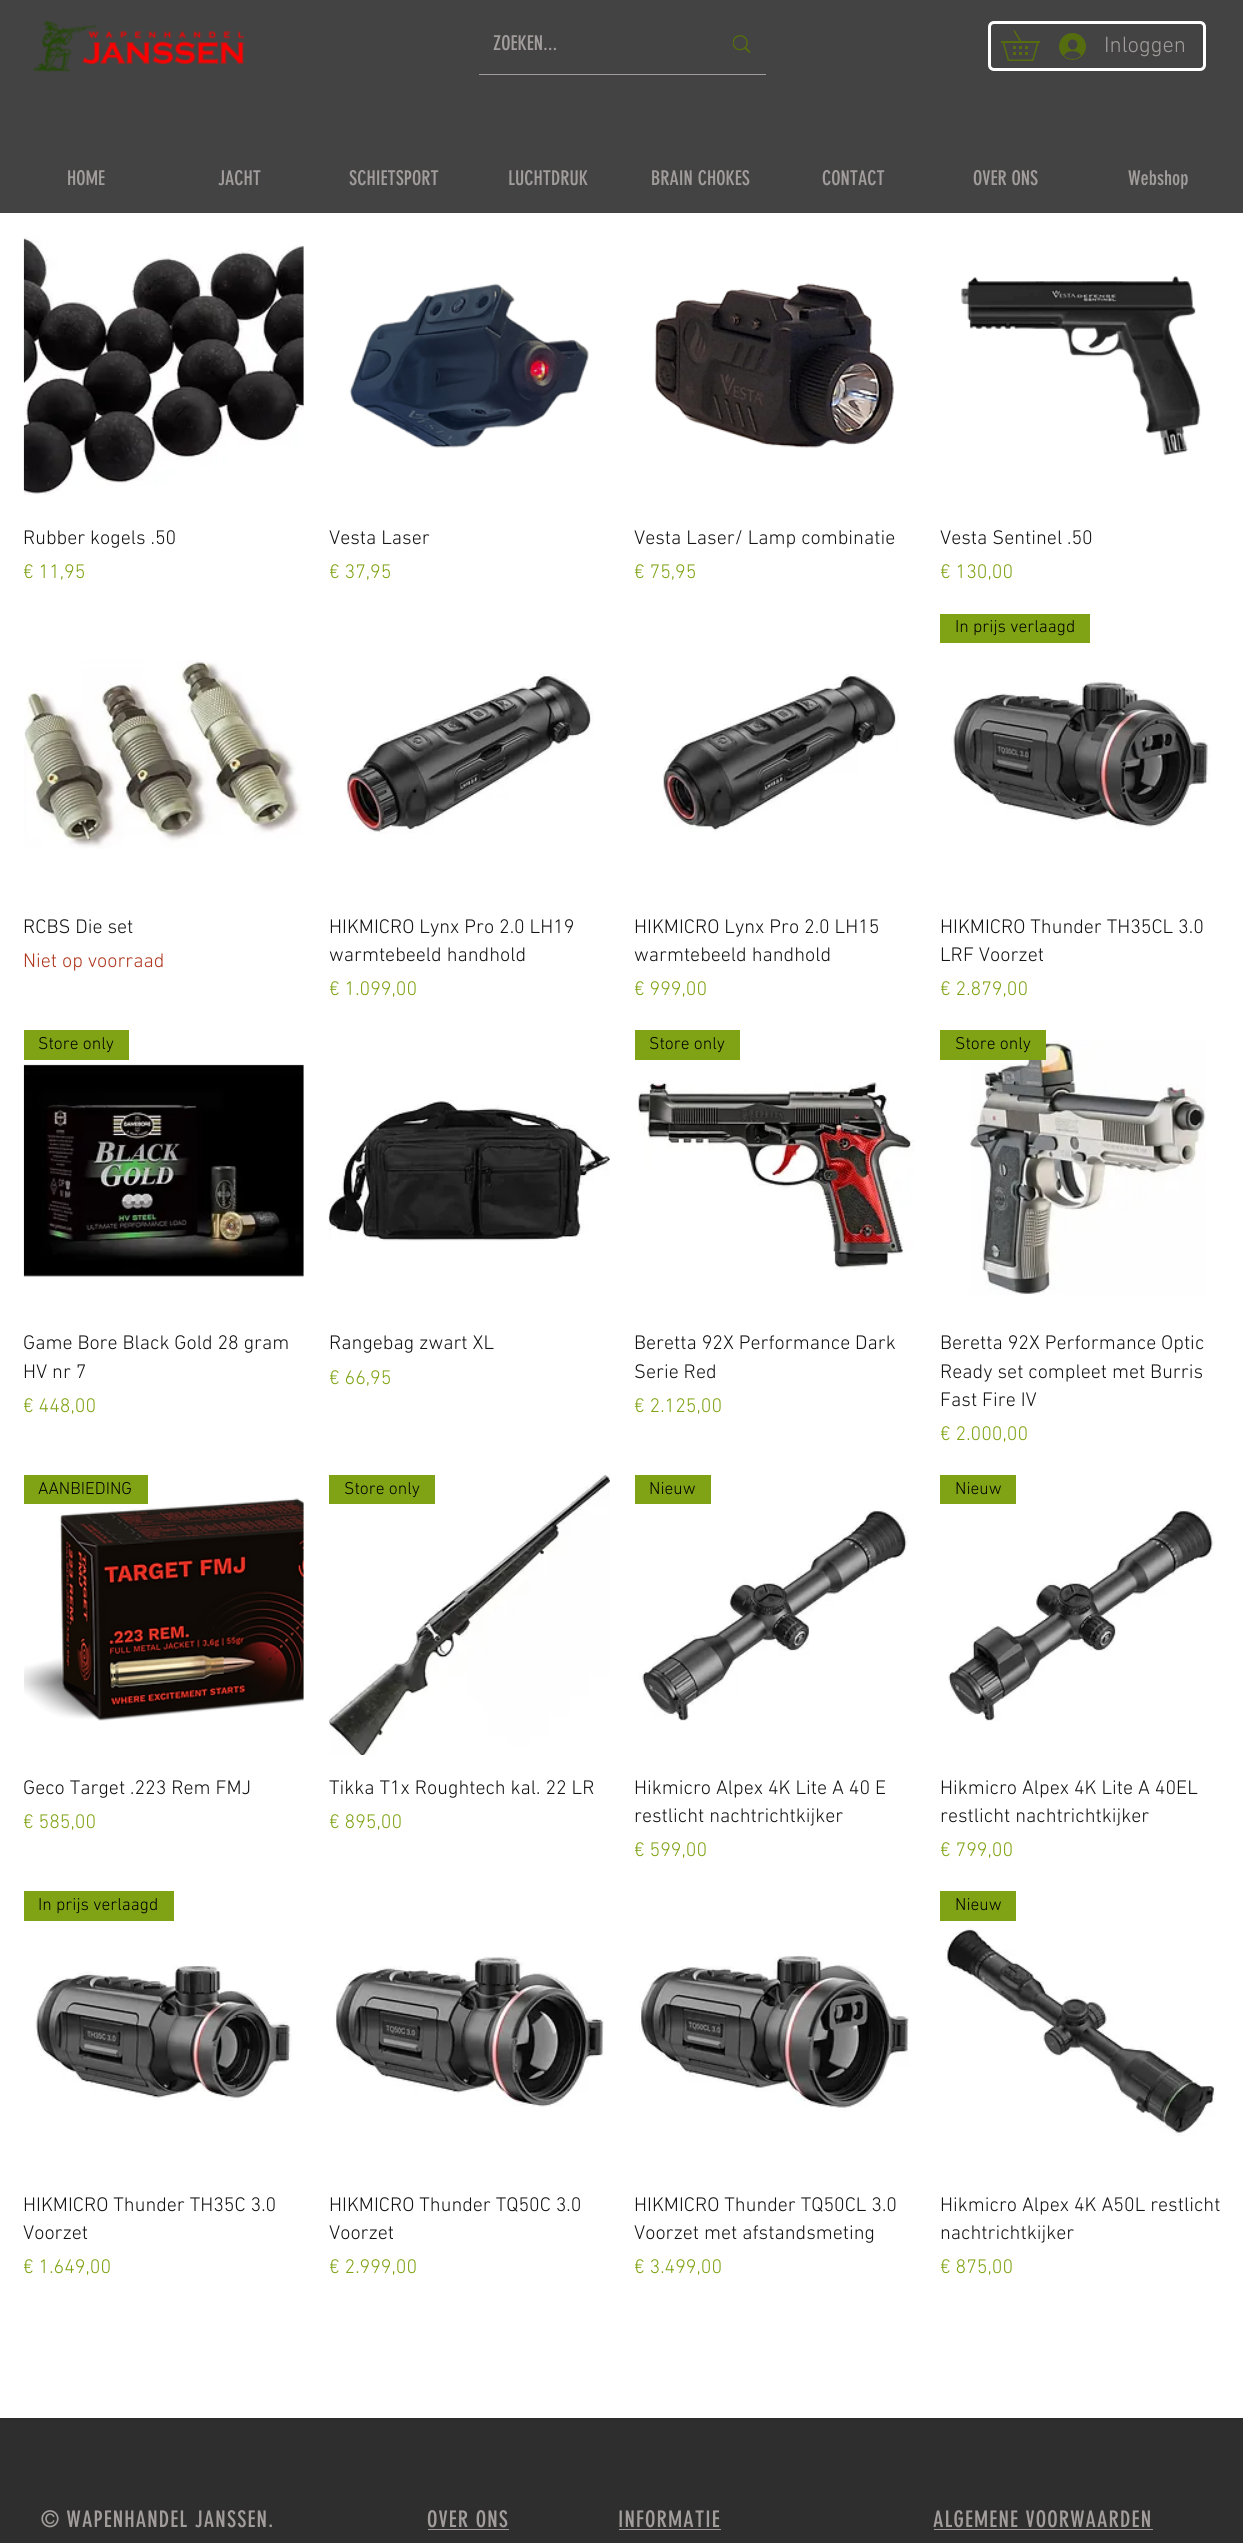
#include <cairo/cairo.h>
#include <math.h>
#include <stddef.h>


static void draw_spaced(cairo_t *cr, double x, double y, const char *s, double letter, double word) {
  cairo_move_to(cr, x, y);
  while (*s) {
    char ch[5] = {0};
    int n = 0;
    do ch[n++] = *s++; while ((*s & 0xC0) == 0x80);
    cairo_show_text(cr, ch);
    cairo_rel_move_to(cr, letter + word * (*ch == ' '), 0);
  }
}

static void rounded_rect(cairo_t *cr, double x, double y, double w, double h, double r) {
  cairo_new_sub_path(cr);
  cairo_arc(cr, x + w - r, y + h - r, r, 0, M_PI / 2);
  cairo_arc(cr, x + r, y + h - r, r, M_PI / 2, M_PI);
  cairo_arc(cr, x + r, y + r, r, M_PI, 1.5 * M_PI);
  cairo_arc(cr, x + w - r, y + r, r, 1.5 * M_PI, 2 * M_PI);
  cairo_close_path(cr);
}

static void draw_image(cairo_t *cr, const char *path, double x, double y, double w, double h) {
  cairo_surface_t *image = cairo_image_surface_create_from_png(path);
  cairo_save(cr);
  cairo_set_source_surface(cr, image, x, y);
  cairo_rectangle(cr, x, y, w, h);
  cairo_fill(cr);
  cairo_restore(cr);
  cairo_surface_destroy(image);
}

static void draw(cairo_t *cr) {
  cairo_set_source_rgb(cr, 1, 1, 1);
  cairo_paint(cr);
  cairo_set_source_rgb(cr, 67 / 255.0, 67 / 255.0, 67 / 255.0);
  cairo_rectangle(cr, 0, 0, 1243, 213);
  cairo_fill(cr);
  draw_image(cr, "images/1.png", 33, 21, 211, 51);
  cairo_set_source_rgb(cr, 162 / 255.0, 156 / 255.0, 156 / 255.0);
  cairo_rectangle(cr, 479, 74, 287, 1);
  cairo_fill(cr);
  draw_image(cr, "images/2.png", 733, 35, 18, 18);
  rounded_rect(cr, 989.5, 22.5, 215, 47, 4.5);
  cairo_set_source_rgb(cr, 1, 1, 1);
  cairo_set_line_width(cr, 3);
  cairo_stroke(cr);
  draw_image(cr, "images/3.png", 1001, 30, 39, 31);
  draw_image(cr, "images/4.png", 1059, 33, 27, 27);
  draw_image(cr, "images/5.png", 23, 236, 281, 259);
  draw_image(cr, "images/6.png", 349, 283, 240, 165);
  draw_image(cr, "images/7.png", 654, 283, 240, 165);
  draw_image(cr, "images/8.png", 961, 276, 240, 180);
  draw_image(cr, "images/9.png", 24, 660, 279, 189);
  draw_image(cr, "images/10.png", 345, 674, 249, 160);
  draw_image(cr, "images/11.png", 663, 674, 236, 159);
  cairo_set_source_rgb(cr, 128 / 255.0, 163 / 255.0, 21 / 255.0);
  cairo_rectangle(cr, 940, 614, 150, 29);
  cairo_fill(cr);
  draw_image(cr, "images/12.png", 950, 680, 260, 149);
  cairo_rectangle(cr, 24, 1030, 105, 30);
  cairo_fill(cr);
  draw_image(cr, "images/13.png", 23, 1064, 281, 213);
  draw_image(cr, "images/14.png", 328, 1100, 282, 141);
  cairo_rectangle(cr, 635, 1030, 105, 30);
  cairo_fill(cr);
  draw_image(cr, "images/15.png", 638, 1080, 276, 190);
  draw_image(cr, "images/16.png", 969, 1040, 237, 255);
  cairo_rectangle(cr, 940, 1030, 106, 30);
  cairo_fill(cr);
  draw_image(cr, "images/17.png", 24, 1498, 280, 223);
  cairo_rectangle(cr, 24, 1475, 124, 29);
  cairo_fill(cr);
  draw_image(cr, "images/18.png", 328, 1475, 282, 280);
  cairo_rectangle(cr, 329, 1475, 106, 29);
  cairo_fill(cr);
  cairo_rectangle(cr, 635, 1475, 76, 29);
  cairo_fill(cr);
  draw_image(cr, "images/19.png", 639, 1510, 270, 211);
  cairo_rectangle(cr, 940, 1475, 76, 29);
  cairo_fill(cr);
  draw_image(cr, "images/20.png", 948, 1510, 267, 211);
  cairo_rectangle(cr, 24, 1891, 150, 30);
  cairo_fill(cr);
  draw_image(cr, "images/21.png", 34, 1966, 258, 135);
  draw_image(cr, "images/22.png", 334, 1956, 270, 151);
  draw_image(cr, "images/23.png", 639, 1956, 270, 155);
  cairo_rectangle(cr, 940, 1891, 76, 30);
  cairo_fill(cr);
  draw_image(cr, "images/24.png", 945, 1927, 270, 209);
  cairo_set_source_rgb(cr, 47 / 255.0, 46 / 255.0, 46 / 255.0);
  cairo_rectangle(cr, 0, 2418, 1243, 125);
  cairo_fill(cr);
  cairo_set_source_rgb(cr, 162 / 255.0, 156 / 255.0, 156 / 255.0);
  cairo_rectangle(cr, 428, 2529, 81, 1);
  cairo_fill(cr);
  cairo_rectangle(cr, 619, 2529, 102, 1);
  cairo_fill(cr);
  cairo_rectangle(cr, 934, 2529, 219, 1);
  cairo_fill(cr);
  cairo_select_font_face(cr, "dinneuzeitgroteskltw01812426", CAIRO_FONT_SLANT_NORMAL, CAIRO_FONT_WEIGHT_NORMAL);
  cairo_set_font_size(cr, 20);
  cairo_move_to(cr, 493, 50);
  cairo_show_text(cr, "ZOEKEN...");
  cairo_select_font_face(cr, "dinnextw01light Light", CAIRO_FONT_SLANT_NORMAL, CAIRO_FONT_WEIGHT_NORMAL);
  cairo_set_font_size(cr, 22.5);
  cairo_move_to(cr, 1104, 52);
  cairo_show_text(cr, "Inloggen");
  cairo_select_font_face(cr, "dinneuzeitgroteskltw01812426", CAIRO_FONT_SLANT_NORMAL, CAIRO_FONT_WEIGHT_NORMAL);
  cairo_set_font_size(cr, 20);
  cairo_move_to(cr, 67, 185);
  cairo_show_text(cr, "HOME");
  cairo_move_to(cr, 218, 185);
  cairo_show_text(cr, "JACHT");
  cairo_move_to(cr, 349, 185);
  cairo_show_text(cr, "SCHIETSPORT");
  cairo_move_to(cr, 508, 185);
  cairo_show_text(cr, "LUCHTDRUK");
  cairo_move_to(cr, 651, 185);
  cairo_show_text(cr, "BRAIN CHOKES");
  cairo_move_to(cr, 822, 185);
  cairo_show_text(cr, "CONTACT");
  cairo_move_to(cr, 973, 185);
  cairo_show_text(cr, "OVER ONS");
  cairo_move_to(cr, 1128, 185);
  cairo_show_text(cr, "Webshop");
  cairo_select_font_face(cr, "dinnextw01light Light", CAIRO_FONT_SLANT_NORMAL, CAIRO_FONT_WEIGHT_NORMAL);
  cairo_set_source_rgb(cr, 20 / 255.0, 20 / 255.0, 20 / 255.0);
  cairo_move_to(cr, 23, 544);
  cairo_show_text(cr, "Rubber kogels .50");
  cairo_set_source_rgb(cr, 128 / 255.0, 163 / 255.0, 21 / 255.0);
  cairo_move_to(cr, 23, 578);
  cairo_show_text(cr, "€ 11,95");
  cairo_set_source_rgb(cr, 20 / 255.0, 20 / 255.0, 20 / 255.0);
  cairo_move_to(cr, 329, 544);
  cairo_show_text(cr, "Vesta Laser");
  cairo_set_source_rgb(cr, 128 / 255.0, 163 / 255.0, 21 / 255.0);
  cairo_move_to(cr, 329, 578);
  cairo_show_text(cr, "€ 37,95");
  cairo_set_source_rgb(cr, 20 / 255.0, 20 / 255.0, 20 / 255.0);
  cairo_move_to(cr, 634, 544);
  cairo_show_text(cr, "Vesta Laser/ Lamp combinatie");
  cairo_set_source_rgb(cr, 128 / 255.0, 163 / 255.0, 21 / 255.0);
  cairo_move_to(cr, 634, 578);
  cairo_show_text(cr, "€ 75,95");
  cairo_set_source_rgb(cr, 20 / 255.0, 20 / 255.0, 20 / 255.0);
  cairo_move_to(cr, 940, 544);
  cairo_show_text(cr, "Vesta Sentinel .50");
  cairo_set_source_rgb(cr, 128 / 255.0, 163 / 255.0, 21 / 255.0);
  cairo_move_to(cr, 940, 578);
  cairo_show_text(cr, "€ 130,00");
  cairo_set_source_rgb(cr, 20 / 255.0, 20 / 255.0, 20 / 255.0);
  cairo_move_to(cr, 23, 933);
  cairo_show_text(cr, "RCBS Die set");
  cairo_set_source_rgb(cr, 176 / 255.0, 56 / 255.0, 32 / 255.0);
  cairo_move_to(cr, 23, 967);
  cairo_show_text(cr, "Niet op voorraad");
  cairo_set_source_rgb(cr, 20 / 255.0, 20 / 255.0, 20 / 255.0);
  cairo_move_to(cr, 329, 933);
  cairo_show_text(cr, "HIKMICRO Lynx Pro 2.0 LH19");
  cairo_move_to(cr, 329, 961);
  cairo_show_text(cr, "warmtebeeld handhold");
  cairo_set_source_rgb(cr, 128 / 255.0, 163 / 255.0, 21 / 255.0);
  cairo_move_to(cr, 329, 995);
  cairo_show_text(cr, "€ 1.099,00");
  cairo_set_source_rgb(cr, 20 / 255.0, 20 / 255.0, 20 / 255.0);
  cairo_move_to(cr, 634, 933);
  cairo_show_text(cr, "HIKMICRO Lynx Pro 2.0 LH15");
  cairo_move_to(cr, 634, 961);
  cairo_show_text(cr, "warmtebeeld handhold");
  cairo_set_source_rgb(cr, 128 / 255.0, 163 / 255.0, 21 / 255.0);
  cairo_move_to(cr, 634, 995);
  cairo_show_text(cr, "€ 999,00");
  cairo_set_font_size(cr, 17.5);
  cairo_set_source_rgb(cr, 2 / 255.0, 2 / 255.0, 2 / 255.0);
  cairo_move_to(cr, 955, 632);
  cairo_show_text(cr, "In prijs verlaagd");
  cairo_set_font_size(cr, 20);
  cairo_set_source_rgb(cr, 20 / 255.0, 20 / 255.0, 20 / 255.0);
  cairo_move_to(cr, 940, 933);
  cairo_show_text(cr, "HIKMICRO Thunder TH35CL 3.0");
  cairo_move_to(cr, 940, 961);
  cairo_show_text(cr, "LRF Voorzet");
  cairo_set_source_rgb(cr, 128 / 255.0, 163 / 255.0, 21 / 255.0);
  cairo_move_to(cr, 940, 995);
  cairo_show_text(cr, "€ 2.879,00");
  cairo_set_font_size(cr, 17.5);
  cairo_set_source_rgb(cr, 2 / 255.0, 2 / 255.0, 2 / 255.0);
  cairo_move_to(cr, 38, 1049);
  cairo_show_text(cr, "Store only");
  cairo_set_font_size(cr, 20);
  cairo_set_source_rgb(cr, 20 / 255.0, 20 / 255.0, 20 / 255.0);
  cairo_move_to(cr, 23, 1349);
  cairo_show_text(cr, "Game Bore Black Gold 28 gram");
  cairo_move_to(cr, 23, 1378);
  cairo_show_text(cr, "HV nr 7");
  cairo_set_source_rgb(cr, 128 / 255.0, 163 / 255.0, 21 / 255.0);
  cairo_move_to(cr, 23, 1412);
  cairo_show_text(cr, "€ 448,00");
  cairo_set_source_rgb(cr, 20 / 255.0, 20 / 255.0, 20 / 255.0);
  cairo_move_to(cr, 329, 1349);
  cairo_show_text(cr, "Rangebag zwart XL");
  cairo_set_source_rgb(cr, 128 / 255.0, 163 / 255.0, 21 / 255.0);
  cairo_move_to(cr, 329, 1384);
  cairo_show_text(cr, "€ 66,95");
  cairo_set_font_size(cr, 17.5);
  cairo_set_source_rgb(cr, 2 / 255.0, 2 / 255.0, 2 / 255.0);
  cairo_move_to(cr, 649, 1049);
  cairo_show_text(cr, "Store only");
  cairo_set_font_size(cr, 20);
  cairo_set_source_rgb(cr, 20 / 255.0, 20 / 255.0, 20 / 255.0);
  cairo_move_to(cr, 634, 1349);
  cairo_show_text(cr, "Beretta 92X Performance Dark");
  cairo_move_to(cr, 634, 1378);
  cairo_show_text(cr, "Serie Red");
  cairo_set_source_rgb(cr, 128 / 255.0, 163 / 255.0, 21 / 255.0);
  cairo_move_to(cr, 634, 1412);
  cairo_show_text(cr, "€ 2.125,00");
  cairo_set_font_size(cr, 17.5);
  cairo_set_source_rgb(cr, 2 / 255.0, 2 / 255.0, 2 / 255.0);
  cairo_move_to(cr, 955, 1049);
  cairo_show_text(cr, "Store only");
  cairo_set_font_size(cr, 20);
  cairo_set_source_rgb(cr, 20 / 255.0, 20 / 255.0, 20 / 255.0);
  cairo_move_to(cr, 940, 1349);
  cairo_show_text(cr, "Beretta 92X Performance Optic");
  cairo_move_to(cr, 940, 1378);
  cairo_show_text(cr, "Ready set compleet met Burris");
  cairo_move_to(cr, 940, 1406);
  cairo_show_text(cr, "Fast Fire IV");
  cairo_set_source_rgb(cr, 128 / 255.0, 163 / 255.0, 21 / 255.0);
  cairo_move_to(cr, 940, 1440);
  cairo_show_text(cr, "€ 2.000,00");
  cairo_set_font_size(cr, 17.5);
  cairo_set_source_rgb(cr, 2 / 255.0, 2 / 255.0, 2 / 255.0);
  cairo_move_to(cr, 38, 1494);
  cairo_show_text(cr, "AANBIEDING");
  cairo_set_font_size(cr, 20);
  cairo_set_source_rgb(cr, 20 / 255.0, 20 / 255.0, 20 / 255.0);
  cairo_move_to(cr, 23, 1794);
  cairo_show_text(cr, "Geco Target .223 Rem FMJ");
  cairo_set_source_rgb(cr, 128 / 255.0, 163 / 255.0, 21 / 255.0);
  cairo_move_to(cr, 23, 1828);
  cairo_show_text(cr, "€ 585,00");
  cairo_set_font_size(cr, 17.5);
  cairo_set_source_rgb(cr, 2 / 255.0, 2 / 255.0, 2 / 255.0);
  cairo_move_to(cr, 344, 1494);
  cairo_show_text(cr, "Store only");
  cairo_set_font_size(cr, 20);
  cairo_set_source_rgb(cr, 20 / 255.0, 20 / 255.0, 20 / 255.0);
  cairo_move_to(cr, 329, 1794);
  cairo_show_text(cr, "Tikka T1x Roughtech kal. 22 LR");
  cairo_set_source_rgb(cr, 128 / 255.0, 163 / 255.0, 21 / 255.0);
  cairo_move_to(cr, 329, 1828);
  cairo_show_text(cr, "€ 895,00");
  cairo_set_font_size(cr, 17.5);
  cairo_set_source_rgb(cr, 2 / 255.0, 2 / 255.0, 2 / 255.0);
  cairo_move_to(cr, 649, 1494);
  cairo_show_text(cr, "Nieuw");
  cairo_set_font_size(cr, 20);
  cairo_set_source_rgb(cr, 20 / 255.0, 20 / 255.0, 20 / 255.0);
  cairo_move_to(cr, 634, 1794);
  cairo_show_text(cr, "Hikmicro Alpex 4K Lite A 40 E");
  cairo_move_to(cr, 634, 1822);
  cairo_show_text(cr, "restlicht nachtrichtkijker");
  cairo_set_source_rgb(cr, 128 / 255.0, 163 / 255.0, 21 / 255.0);
  cairo_move_to(cr, 634, 1856);
  cairo_show_text(cr, "€ 599,00");
  cairo_set_font_size(cr, 17.5);
  cairo_set_source_rgb(cr, 2 / 255.0, 2 / 255.0, 2 / 255.0);
  cairo_move_to(cr, 955, 1494);
  cairo_show_text(cr, "Nieuw");
  cairo_set_font_size(cr, 20);
  cairo_set_source_rgb(cr, 20 / 255.0, 20 / 255.0, 20 / 255.0);
  cairo_move_to(cr, 940, 1794);
  cairo_show_text(cr, "Hikmicro Alpex 4K Lite A 40EL");
  cairo_move_to(cr, 940, 1822);
  cairo_show_text(cr, "restlicht nachtrichtkijker");
  cairo_set_source_rgb(cr, 128 / 255.0, 163 / 255.0, 21 / 255.0);
  cairo_move_to(cr, 940, 1856);
  cairo_show_text(cr, "€ 799,00");
  cairo_set_font_size(cr, 17.5);
  cairo_set_source_rgb(cr, 2 / 255.0, 2 / 255.0, 2 / 255.0);
  cairo_move_to(cr, 38, 1910);
  cairo_show_text(cr, "In prijs verlaagd");
  cairo_set_font_size(cr, 20);
  cairo_set_source_rgb(cr, 20 / 255.0, 20 / 255.0, 20 / 255.0);
  cairo_move_to(cr, 23, 2211);
  cairo_show_text(cr, "HIKMICRO Thunder TH35C 3.0");
  cairo_move_to(cr, 23, 2239);
  cairo_show_text(cr, "Voorzet");
  cairo_set_source_rgb(cr, 128 / 255.0, 163 / 255.0, 21 / 255.0);
  cairo_move_to(cr, 23, 2273);
  cairo_show_text(cr, "€ 1.649,00");
  cairo_set_source_rgb(cr, 20 / 255.0, 20 / 255.0, 20 / 255.0);
  cairo_move_to(cr, 329, 2211);
  cairo_show_text(cr, "HIKMICRO Thunder TQ50C 3.0");
  cairo_move_to(cr, 329, 2239);
  cairo_show_text(cr, "Voorzet");
  cairo_set_source_rgb(cr, 128 / 255.0, 163 / 255.0, 21 / 255.0);
  cairo_move_to(cr, 329, 2273);
  cairo_show_text(cr, "€ 2.999,00");
  cairo_set_source_rgb(cr, 20 / 255.0, 20 / 255.0, 20 / 255.0);
  cairo_move_to(cr, 634, 2211);
  cairo_show_text(cr, "HIKMICRO Thunder TQ50CL 3.0");
  cairo_move_to(cr, 634, 2239);
  cairo_show_text(cr, "Voorzet met afstandsmeting");
  cairo_set_source_rgb(cr, 128 / 255.0, 163 / 255.0, 21 / 255.0);
  cairo_move_to(cr, 634, 2273);
  cairo_show_text(cr, "€ 3.499,00");
  cairo_set_font_size(cr, 17.5);
  cairo_set_source_rgb(cr, 2 / 255.0, 2 / 255.0, 2 / 255.0);
  cairo_move_to(cr, 955, 1910);
  cairo_show_text(cr, "Nieuw");
  cairo_set_font_size(cr, 20);
  cairo_set_source_rgb(cr, 20 / 255.0, 20 / 255.0, 20 / 255.0);
  cairo_move_to(cr, 940, 2211);
  cairo_show_text(cr, "Hikmicro Alpex 4K A50L restlicht");
  cairo_move_to(cr, 940, 2239);
  cairo_show_text(cr, "nachtrichtkijker");
  cairo_set_source_rgb(cr, 128 / 255.0, 163 / 255.0, 21 / 255.0);
  cairo_move_to(cr, 940, 2273);
  cairo_show_text(cr, "€ 875,00");
  cairo_select_font_face(cr, "dinneuzeitgroteskltw01812426", CAIRO_FONT_SLANT_NORMAL, CAIRO_FONT_WEIGHT_NORMAL);
  cairo_set_font_size(cr, 22.5);
  cairo_set_source_rgb(cr, 162 / 255.0, 156 / 255.0, 156 / 255.0);
  draw_spaced(cr, 41, 2527, "© WAPENHANDEL JANSSEN.", 1.1, 0);
  draw_spaced(cr, 427, 2527, "OVER ONS", 1.1, 0);
  draw_spaced(cr, 618, 2527, "INFORMATIE", 1.1, 0);
  draw_spaced(cr, 933, 2527, "ALGEMENE VOORWAARDEN", 1.1, 0);
}

int main(void) {
  cairo_surface_t *surface = cairo_image_surface_create(CAIRO_FORMAT_RGB24, 1243, 2543);
  cairo_t *cr = cairo_create(surface);
  cairo_font_options_t *options = cairo_font_options_create();
  cairo_font_options_set_hint_metrics(options, CAIRO_HINT_METRICS_OFF);
  cairo_font_options_set_hint_style(options, CAIRO_HINT_STYLE_NONE);
  cairo_set_font_options(cr, options);
  cairo_set_miter_limit(cr, 4);
  draw(cr);
  cairo_surface_write_to_png(surface, "out.png");
  cairo_font_options_destroy(options);
  cairo_destroy(cr);
  cairo_surface_destroy(surface);
  return 0;
}
